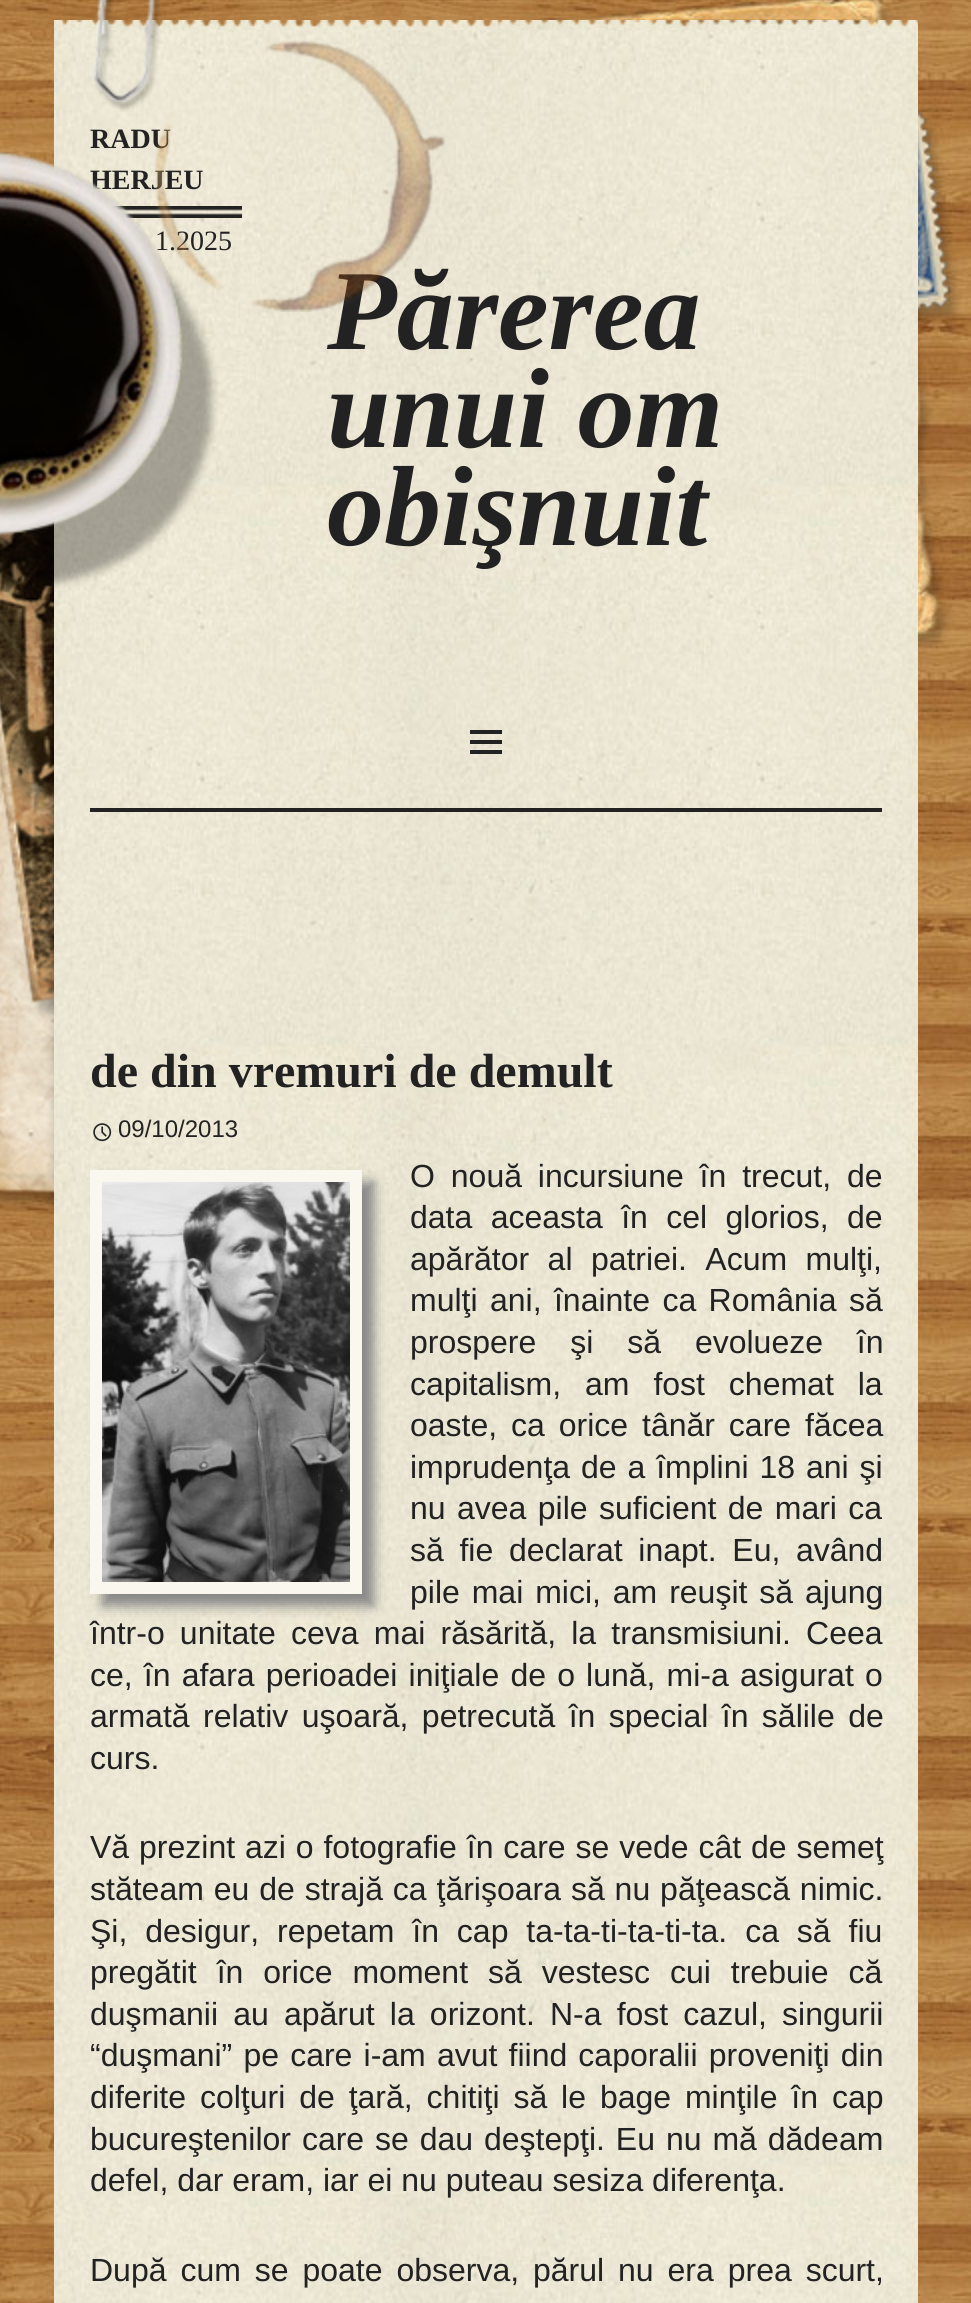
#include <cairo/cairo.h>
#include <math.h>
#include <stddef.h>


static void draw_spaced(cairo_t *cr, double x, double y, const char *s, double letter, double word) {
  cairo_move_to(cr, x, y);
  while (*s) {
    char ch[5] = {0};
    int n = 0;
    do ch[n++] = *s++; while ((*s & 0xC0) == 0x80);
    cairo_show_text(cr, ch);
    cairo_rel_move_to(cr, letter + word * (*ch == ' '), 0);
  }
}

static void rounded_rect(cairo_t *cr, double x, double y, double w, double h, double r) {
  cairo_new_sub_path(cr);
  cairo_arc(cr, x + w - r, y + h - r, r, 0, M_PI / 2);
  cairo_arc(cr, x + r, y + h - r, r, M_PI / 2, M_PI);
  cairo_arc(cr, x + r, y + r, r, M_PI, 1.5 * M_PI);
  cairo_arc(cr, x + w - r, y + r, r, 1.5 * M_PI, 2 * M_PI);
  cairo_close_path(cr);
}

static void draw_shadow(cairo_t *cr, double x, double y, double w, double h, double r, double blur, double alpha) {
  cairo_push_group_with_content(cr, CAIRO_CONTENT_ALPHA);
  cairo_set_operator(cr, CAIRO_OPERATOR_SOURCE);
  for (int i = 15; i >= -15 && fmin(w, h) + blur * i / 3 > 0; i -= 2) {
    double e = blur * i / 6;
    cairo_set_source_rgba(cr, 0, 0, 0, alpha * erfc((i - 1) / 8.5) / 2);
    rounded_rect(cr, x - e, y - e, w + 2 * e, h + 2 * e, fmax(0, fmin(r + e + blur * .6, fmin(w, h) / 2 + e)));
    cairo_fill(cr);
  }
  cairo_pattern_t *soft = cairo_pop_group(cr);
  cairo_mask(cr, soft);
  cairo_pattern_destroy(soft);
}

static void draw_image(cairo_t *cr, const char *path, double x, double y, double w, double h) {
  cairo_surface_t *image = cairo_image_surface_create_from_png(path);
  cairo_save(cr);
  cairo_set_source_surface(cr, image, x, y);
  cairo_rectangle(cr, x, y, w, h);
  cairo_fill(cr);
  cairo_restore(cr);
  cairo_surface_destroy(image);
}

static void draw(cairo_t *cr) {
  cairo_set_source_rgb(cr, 1, 1, 1);
  cairo_paint(cr);
  draw_image(cr, "images/1.png", 0, 0, 971, 2303);
  draw_image(cr, "images/2.png", 508, 0, 454, 652);
  draw_image(cr, "images/3.png", 0, 519, 54, 695);
  draw_image(cr, "images/4.png", 54, 30, 864, 2273);
  draw_image(cr, "images/5.png", 54, 20, 864, 10);
  draw_image(cr, "images/8.png", 110, 206, 132, 12);
  cairo_set_source_rgb(cr, 34 / 255.0, 34 / 255.0, 34 / 255.0);
  cairo_rectangle(cr, 90, 808, 792, 4);
  cairo_fill(cr);
  draw_image(cr, "images/10.png", 470, 730, 32, 24);
  draw_image(cr, "images/11.png", 93, 1123, 19, 19);
  cairo_set_source_rgb(cr, 135 / 255.0, 135 / 255.0, 135 / 255.0);
  draw_shadow(cr, 102, 1182, 272, 424, 0, 6, 1);
  cairo_rectangle(cr, 96, 1176, 260, 412);
  cairo_set_source_rgb(cr, 249 / 255.0, 247 / 255.0, 238 / 255.0);
  cairo_set_line_width(cr, 12);
  cairo_stroke(cr);
  draw_image(cr, "images/12.png", 102, 1182, 248, 400);
  cairo_select_font_face(cr, "Liberation Serif", CAIRO_FONT_SLANT_NORMAL, CAIRO_FONT_WEIGHT_BOLD);
  cairo_set_font_size(cr, 28);
  cairo_set_source_rgb(cr, 34 / 255.0, 34 / 255.0, 34 / 255.0);
  cairo_move_to(cr, 90, 148);
  cairo_show_text(cr, "RADU");
  cairo_move_to(cr, 90, 189);
  cairo_show_text(cr, "HERJEU");
  cairo_select_font_face(cr, "Liberation Serif", CAIRO_FONT_SLANT_NORMAL, CAIRO_FONT_WEIGHT_NORMAL);
  cairo_move_to(cr, 155, 250);
  cairo_show_text(cr, "1.2025");
  cairo_select_font_face(cr, "Liberation Serif", CAIRO_FONT_SLANT_ITALIC, CAIRO_FONT_WEIGHT_BOLD);
  cairo_set_font_size(cr, 114);
  cairo_move_to(cr, 327, 349);
  cairo_show_text(cr, "Părerea");
  draw_image(cr, "images/7.png", 154, 40, 292, 272);
  draw_image(cr, "images/6.png", 94, 0, 68, 112);
  cairo_move_to(cr, 327, 447);
  cairo_show_text(cr, "unui om");
  cairo_move_to(cr, 327, 545);
  cairo_show_text(cr, "obişnuit");
  draw_image(cr, "images/9.png", 0, 151, 218, 441);
  cairo_select_font_face(cr, "Liberation Serif", CAIRO_FONT_SLANT_NORMAL, CAIRO_FONT_WEIGHT_BOLD);
  cairo_set_font_size(cr, 48);
  cairo_move_to(cr, 90, 1087);
  cairo_show_text(cr, "de din vremuri de demult");
  cairo_select_font_face(cr, "Liberation Sans", CAIRO_FONT_SLANT_NORMAL, CAIRO_FONT_WEIGHT_NORMAL);
  cairo_set_font_size(cr, 24);
  cairo_move_to(cr, 118, 1137);
  cairo_show_text(cr, "09/10/2013");
  cairo_set_font_size(cr, 32);
  draw_spaced(cr, 410, 1187, "O nouă incursiune în trecut, de", 0, 7);
  draw_spaced(cr, 410, 1228, "data aceasta în cel glorios, de", 0, 9.5);
  draw_spaced(cr, 410, 1270, "apărător al patriei. Acum mulţi,", 0, 9.5);
  draw_spaced(cr, 410, 1311, "mulţi ani, înainte ca România să", 0, 3.5);
  draw_spaced(cr, 410, 1353, "prospere şi să evolueze în", 0, 25);
  draw_spaced(cr, 410, 1395, "capitalism, am fost chemat la", 0, 15);
  draw_spaced(cr, 410, 1436, "oaste, ca orice tânăr care făcea", 0, 5);
  draw_spaced(cr, 410, 1478, "imprudenţa de a împlini 18 ani şi", 0, 2);
  draw_spaced(cr, 410, 1519, "nu avea pile suficient de mari ca", 0, 2.5);
  draw_spaced(cr, 410, 1561, "să fie declarat inapt. Eu, având", 0, 6.75);
  draw_spaced(cr, 410, 1603, "pile mai mici, am reuşit să ajung", 0, 3);
  draw_spaced(cr, 90, 1644, "într-o unitate ceva mai răsărită, la transmisiuni. Ceea", 0, 6.25);
  draw_spaced(cr, 90, 1686, "ce, în afara perioadei iniţiale de o lună, mi-a asigurat o", 0, 2.25);
  draw_spaced(cr, 90, 1727, "armată relativ uşoară, petrecută în special în sălile de", 0, 4.5);
  cairo_move_to(cr, 90, 1769);
  cairo_show_text(cr, "curs.");
  draw_spaced(cr, 90, 1858, "Vă prezint azi o fotografie în care se vede cât de semeţ", 0, 1);
  draw_spaced(cr, 90, 1900, "stăteam eu de strajă ca ţărişoara să nu păţească nimic.", 0, 1);
  draw_spaced(cr, 90, 1942, "Şi, desigur, repetam în cap ta-ta-ti-ta-ti-ta. ca să fiu", 0, 9);
  draw_spaced(cr, 90, 1983, "pregătit în orice moment să vestesc cui trebuie că", 0, 11);
  draw_spaced(cr, 90, 2025, "duşmanii au apărut la orizont. N-a fost cazul, singurii", 0, 6.25);
  draw_spaced(cr, 90, 2066, "“duşmani” pe care i-am avut fiind caporalii proveniţi din", 0, 2.25);
  draw_spaced(cr, 90, 2108, "diferite colţuri de ţară, chitiţi să le bage minţile în cap", 0, 5);
  draw_spaced(cr, 90, 2150, "bucureştenilor care se dau deştepţi. Eu nu mă dădeam", 0, 2);
  cairo_move_to(cr, 90, 2191);
  cairo_show_text(cr, "defel, dar eram, iar ei nu puteau sesiza diferenţa.");
  draw_spaced(cr, 90, 2281, "După cum se poate observa, părul nu era prea scurt,", 0, 5);
}

int main(void) {
  cairo_surface_t *surface = cairo_image_surface_create(CAIRO_FORMAT_RGB24, 971, 2303);
  cairo_t *cr = cairo_create(surface);
  cairo_font_options_t *options = cairo_font_options_create();
  cairo_font_options_set_hint_metrics(options, CAIRO_HINT_METRICS_OFF);
  cairo_font_options_set_hint_style(options, CAIRO_HINT_STYLE_NONE);
  cairo_set_font_options(cr, options);
  cairo_set_miter_limit(cr, 4);
  draw(cr);
  cairo_surface_write_to_png(surface, "out.png");
  cairo_font_options_destroy(options);
  cairo_destroy(cr);
  cairo_surface_destroy(surface);
  return 0;
}
